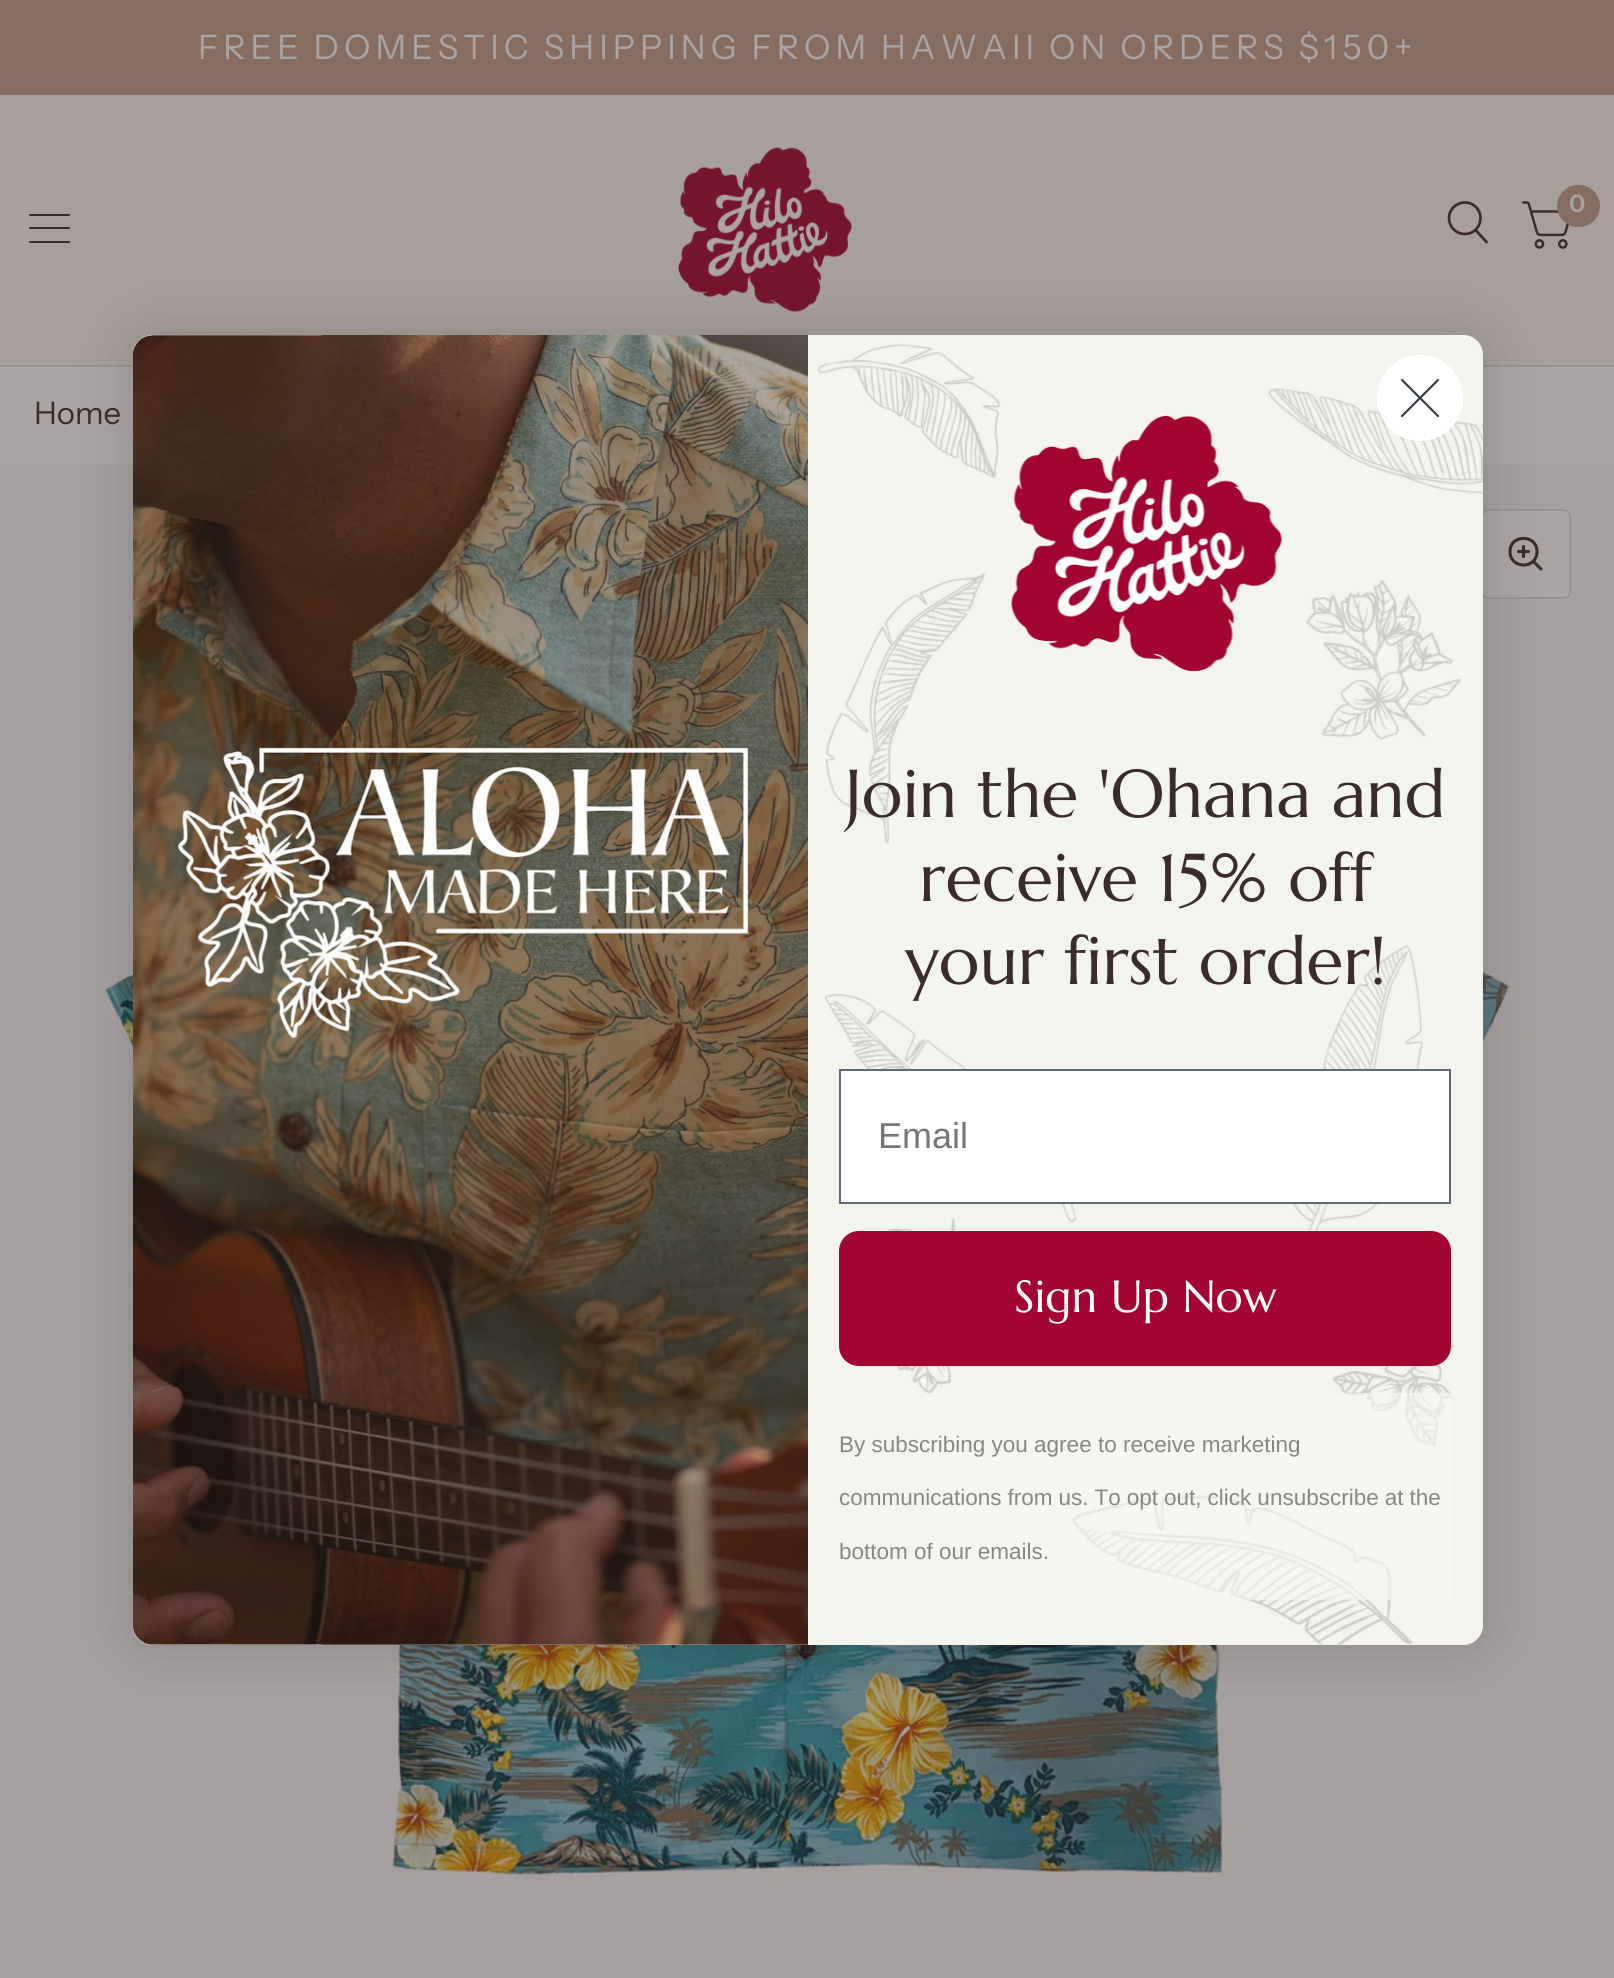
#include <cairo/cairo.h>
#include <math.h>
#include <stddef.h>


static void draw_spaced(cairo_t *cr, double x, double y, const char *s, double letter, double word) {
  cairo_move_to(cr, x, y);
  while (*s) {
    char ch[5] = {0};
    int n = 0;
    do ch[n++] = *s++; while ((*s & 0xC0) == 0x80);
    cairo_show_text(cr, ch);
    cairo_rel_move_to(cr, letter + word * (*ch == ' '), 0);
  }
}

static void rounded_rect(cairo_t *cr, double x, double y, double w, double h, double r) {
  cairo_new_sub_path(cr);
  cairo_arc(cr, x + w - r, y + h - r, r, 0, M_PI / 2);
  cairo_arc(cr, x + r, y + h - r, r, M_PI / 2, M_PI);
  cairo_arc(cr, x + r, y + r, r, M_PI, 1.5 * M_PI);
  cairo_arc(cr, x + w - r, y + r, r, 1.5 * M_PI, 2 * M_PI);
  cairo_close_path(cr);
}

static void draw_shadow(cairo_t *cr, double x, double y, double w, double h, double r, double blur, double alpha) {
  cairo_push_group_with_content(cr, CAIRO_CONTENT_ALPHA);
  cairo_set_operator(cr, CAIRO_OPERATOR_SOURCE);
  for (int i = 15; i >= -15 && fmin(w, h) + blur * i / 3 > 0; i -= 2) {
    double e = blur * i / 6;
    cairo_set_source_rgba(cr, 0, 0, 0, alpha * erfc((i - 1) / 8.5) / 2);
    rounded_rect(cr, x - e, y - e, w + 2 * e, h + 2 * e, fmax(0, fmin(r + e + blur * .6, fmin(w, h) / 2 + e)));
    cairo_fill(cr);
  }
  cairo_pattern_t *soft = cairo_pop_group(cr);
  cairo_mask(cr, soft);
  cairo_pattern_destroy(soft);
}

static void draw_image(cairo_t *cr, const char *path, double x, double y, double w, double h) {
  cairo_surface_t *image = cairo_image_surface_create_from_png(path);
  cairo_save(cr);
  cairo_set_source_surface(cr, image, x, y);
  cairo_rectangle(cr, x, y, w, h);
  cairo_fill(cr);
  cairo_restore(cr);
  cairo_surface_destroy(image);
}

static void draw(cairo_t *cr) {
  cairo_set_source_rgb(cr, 171 / 255.0, 164 / 255.0, 164 / 255.0);
  cairo_paint(cr);
  cairo_set_source_rgb(cr, 135 / 255.0, 109 / 255.0, 95 / 255.0);
  cairo_rectangle(cr, 0, 0, 1614, 95);
  cairo_fill(cr);
  cairo_set_source_rgb(cr, 166 / 255.0, 159 / 255.0, 155 / 255.0);
  cairo_rectangle(cr, 0, 95, 1614, 270);
  cairo_fill(cr);
  cairo_set_source_rgb(cr, 152 / 255.0, 145 / 255.0, 145 / 255.0);
  cairo_rectangle(cr, 0, 365, 1614, 2);
  cairo_fill(cr);
  draw_image(cr, "images/1.png", 678, 147, 174, 165);
  cairo_new_path(cr);
  cairo_move_to(cr, 1476, 230.5);
  cairo_line_to(cr, 1486.5, 242);
  cairo_move_to(cr, 1480.5, 218);
  cairo_curve_to(cr, 1480.5, 227, 1473.5, 234, 1465, 234);
  cairo_curve_to(cr, 1456, 234, 1449, 227, 1449, 218);
  cairo_curve_to(cr, 1449, 209.5, 1456, 202.5, 1465, 202.5);
  cairo_curve_to(cr, 1473.5, 202.5, 1480.5, 209.5, 1480.5, 218);
  cairo_close_path(cr);
  cairo_set_source_rgb(cr, 59 / 255.0, 43 / 255.0, 43 / 255.0);
  cairo_set_line_width(cr, 2.7);
  cairo_set_line_cap(cr, CAIRO_LINE_CAP_ROUND);
  cairo_set_line_join(cr, CAIRO_LINE_JOIN_ROUND);
  cairo_stroke(cr);
  draw_image(cr, "images/2.png", 1522, 201, 47, 48);
  cairo_set_source_rgb(cr, 135 / 255.0, 109 / 255.0, 95 / 255.0);
  rounded_rect(cr, 1557, 185, 43, 42, 21);
  cairo_fill(cr);
  cairo_set_source_rgb(cr, 59 / 255.0, 43 / 255.0, 43 / 255.0);
  rounded_rect(cr, 29, 214, 41, 2, 1);
  cairo_fill(cr);
  rounded_rect(cr, 29, 227, 41, 2, 1);
  cairo_fill(cr);
  rounded_rect(cr, 29, 241, 41, 2, 1);
  cairo_fill(cr);
  draw_image(cr, "images/3.png", 0, 464, 1614, 1514);
  cairo_set_source_rgb(cr, 171 / 255.0, 164 / 255.0, 164 / 255.0);
  rounded_rect(cr, 1482, 510, 88, 88, 6);
  cairo_fill_preserve(cr);
  cairo_set_source_rgb(cr, 152 / 255.0, 145 / 255.0, 145 / 255.0);
  cairo_set_line_width(cr, 2);
  cairo_set_line_cap(cr, CAIRO_LINE_CAP_BUTT);
  cairo_set_line_join(cr, CAIRO_LINE_JOIN_MITER);
  cairo_stroke(cr);
  cairo_new_path(cr);
  cairo_move_to(cr, 1518.5, 551.5);
  cairo_line_to(cr, 1528.5, 551.5);
  cairo_move_to(cr, 1523.5, 546.5);
  cairo_line_to(cr, 1523.5, 556.5);
  cairo_move_to(cr, 1533, 561);
  cairo_line_to(cr, 1541, 569);
  cairo_move_to(cr, 1537, 551.5);
  cairo_curve_to(cr, 1537, 569.5, 1510, 569.5, 1510, 551.5);
  cairo_curve_to(cr, 1510, 534, 1537, 534, 1537, 551.5);
  cairo_close_path(cr);
  cairo_set_source_rgb(cr, 59 / 255.0, 43 / 255.0, 43 / 255.0);
  cairo_set_line_width(cr, 3.1);
  cairo_set_line_cap(cr, CAIRO_LINE_CAP_ROUND);
  cairo_set_line_join(cr, CAIRO_LINE_JOIN_ROUND);
  cairo_stroke(cr);
  cairo_set_source_rgb(cr, 0, 0, 0);
  draw_shadow(cr, 133, 335, 1350, 1310, 20, 34, 0.15);
  cairo_set_source_rgb(cr, 246 / 255.0, 246 / 255.0, 240 / 255.0);
  rounded_rect(cr, 133, 335, 1350, 1310, 20);
  cairo_fill(cr);
  draw_image(cr, "images/4.png", 133, 335, 1350, 1310);
  cairo_set_source_rgb(cr, 1, 1, 1);
  cairo_arc(cr, 1420, 398, 43, 0, 2 * M_PI);
  cairo_fill(cr);
  cairo_new_path(cr);
  cairo_move_to(cr, 1402, 380);
  cairo_line_to(cr, 1438, 416);
  cairo_move_to(cr, 1402, 416);
  cairo_line_to(cr, 1438, 380);
  cairo_close_path(cr);
  cairo_set_source_rgb(cr, 55 / 255.0, 63 / 255.0, 71 / 255.0);
  cairo_set_line_width(cr, 2.2);
  cairo_stroke(cr);
  draw_image(cr, "images/5.png", 133, 335, 675, 1310);
  draw_image(cr, "images/6.png", 1011, 415, 271, 257);
  cairo_set_source_rgb(cr, 1, 1, 1);
  cairo_rectangle(cr, 840, 1070, 610, 133);
  cairo_fill_preserve(cr);
  cairo_set_source_rgb(cr, 96 / 255.0, 106 / 255.0, 114 / 255.0);
  cairo_set_line_width(cr, 2);
  cairo_set_line_cap(cr, CAIRO_LINE_CAP_BUTT);
  cairo_set_line_join(cr, CAIRO_LINE_JOIN_MITER);
  cairo_stroke(cr);
  cairo_set_source_rgb(cr, 162 / 255.0, 5 / 255.0, 50 / 255.0);
  rounded_rect(cr, 839, 1231, 612, 135, 20);
  cairo_fill(cr);
  cairo_set_source_rgba(cr, 246 / 255.0, 246 / 255.0, 240 / 255.0, 0.62);
  cairo_rectangle(cr, 926, 1393, 526, 207);
  cairo_fill(cr);
  cairo_select_font_face(cr, "Instrument Sans", CAIRO_FONT_SLANT_NORMAL, CAIRO_FONT_WEIGHT_NORMAL);
  cairo_set_font_size(cr, 33.75);
  cairo_set_source_rgb(cr, 171 / 255.0, 164 / 255.0, 164 / 255.0);
  draw_spaced(cr, 198, 59, "FREE DOMESTIC SHIPPING FROM HAWAII ON ORDERS $150+", 5.05, -2);
  cairo_select_font_face(cr, "Instrument Sans SemiBold", CAIRO_FONT_SLANT_NORMAL, CAIRO_FONT_WEIGHT_NORMAL);
  cairo_set_font_size(cr, 24);
  cairo_move_to(cr, 1569, 212);
  cairo_show_text(cr, "0");
  cairo_select_font_face(cr, "Instrument Sans", CAIRO_FONT_SLANT_NORMAL, CAIRO_FONT_WEIGHT_NORMAL);
  cairo_set_font_size(cr, 31);
  cairo_set_source_rgb(cr, 59 / 255.0, 43 / 255.0, 43 / 255.0);
  cairo_move_to(cr, 34, 424);
  cairo_show_text(cr, "Home");
  cairo_select_font_face(cr, "Marcellus", CAIRO_FONT_SLANT_NORMAL, CAIRO_FONT_WEIGHT_NORMAL);
  cairo_set_font_size(cr, 67.5);
  cairo_move_to(cr, 845, 817);
  cairo_show_text(cr, "Join the 'Ohana and");
  cairo_move_to(cr, 919, 901);
  cairo_show_text(cr, "receive 15% off");
  cairo_move_to(cr, 905, 984);
  cairo_show_text(cr, "your first order!");
  cairo_select_font_face(cr, "Liberation Sans", CAIRO_FONT_SLANT_NORMAL, CAIRO_FONT_WEIGHT_NORMAL);
  cairo_set_font_size(cr, 36);
  cairo_set_source_rgb(cr, 118 / 255.0, 118 / 255.0, 118 / 255.0);
  cairo_move_to(cr, 878, 1148);
  cairo_show_text(cr, "Email");
  cairo_select_font_face(cr, "Marcellus", CAIRO_FONT_SLANT_NORMAL, CAIRO_FONT_WEIGHT_NORMAL);
  cairo_set_font_size(cr, 45);
  cairo_set_source_rgb(cr, 1, 1, 1);
  cairo_move_to(cr, 1014, 1312);
  cairo_show_text(cr, "Sign Up Now");
  cairo_select_font_face(cr, "Liberation Sans", CAIRO_FONT_SLANT_NORMAL, CAIRO_FONT_WEIGHT_NORMAL);
  cairo_set_font_size(cr, 22.5);
  cairo_set_source_rgb(cr, 134 / 255.0, 134 / 255.0, 134 / 255.0);
  cairo_move_to(cr, 839, 1452);
  cairo_show_text(cr, "By subscribing you agree to receive marketing");
  draw_spaced(cr, 839, 1505, "communications from us. To opt out, click unsubscribe at the", 0, -0.25);
  cairo_move_to(cr, 839, 1559);
  cairo_show_text(cr, "bottom of our emails.");
}

int main(void) {
  cairo_surface_t *surface = cairo_image_surface_create(CAIRO_FORMAT_RGB24, 1614, 1978);
  cairo_t *cr = cairo_create(surface);
  cairo_font_options_t *options = cairo_font_options_create();
  cairo_font_options_set_hint_metrics(options, CAIRO_HINT_METRICS_OFF);
  cairo_font_options_set_hint_style(options, CAIRO_HINT_STYLE_NONE);
  cairo_set_font_options(cr, options);
  cairo_set_miter_limit(cr, 4);
  draw(cr);
  cairo_surface_write_to_png(surface, "out.png");
  cairo_font_options_destroy(options);
  cairo_destroy(cr);
  cairo_surface_destroy(surface);
  return 0;
}
